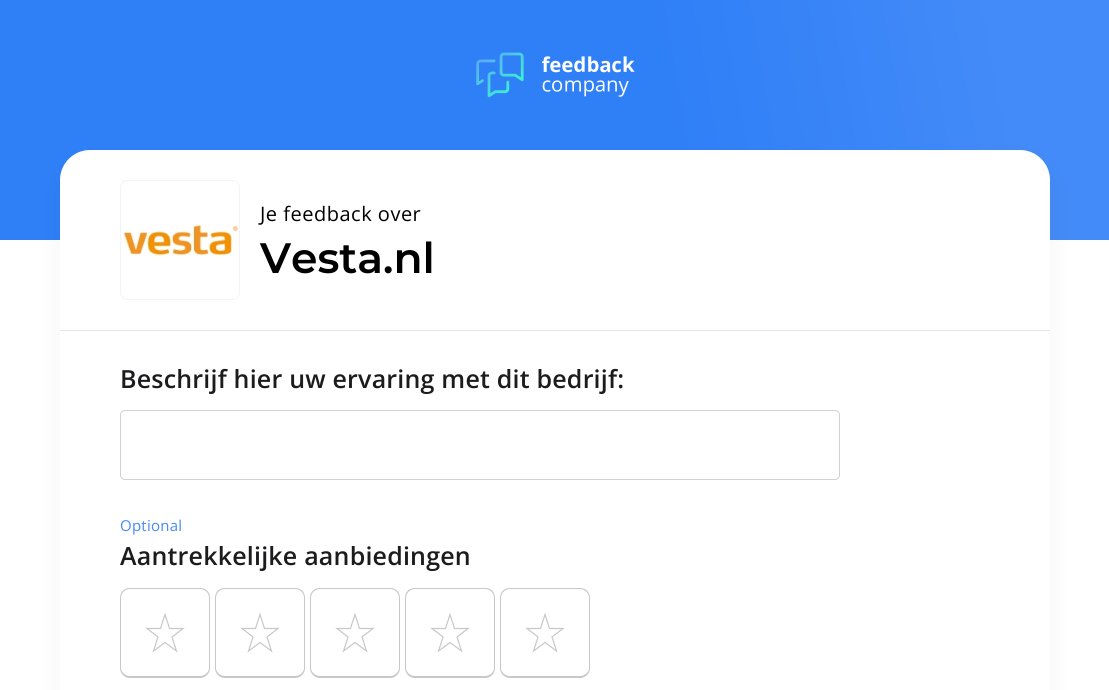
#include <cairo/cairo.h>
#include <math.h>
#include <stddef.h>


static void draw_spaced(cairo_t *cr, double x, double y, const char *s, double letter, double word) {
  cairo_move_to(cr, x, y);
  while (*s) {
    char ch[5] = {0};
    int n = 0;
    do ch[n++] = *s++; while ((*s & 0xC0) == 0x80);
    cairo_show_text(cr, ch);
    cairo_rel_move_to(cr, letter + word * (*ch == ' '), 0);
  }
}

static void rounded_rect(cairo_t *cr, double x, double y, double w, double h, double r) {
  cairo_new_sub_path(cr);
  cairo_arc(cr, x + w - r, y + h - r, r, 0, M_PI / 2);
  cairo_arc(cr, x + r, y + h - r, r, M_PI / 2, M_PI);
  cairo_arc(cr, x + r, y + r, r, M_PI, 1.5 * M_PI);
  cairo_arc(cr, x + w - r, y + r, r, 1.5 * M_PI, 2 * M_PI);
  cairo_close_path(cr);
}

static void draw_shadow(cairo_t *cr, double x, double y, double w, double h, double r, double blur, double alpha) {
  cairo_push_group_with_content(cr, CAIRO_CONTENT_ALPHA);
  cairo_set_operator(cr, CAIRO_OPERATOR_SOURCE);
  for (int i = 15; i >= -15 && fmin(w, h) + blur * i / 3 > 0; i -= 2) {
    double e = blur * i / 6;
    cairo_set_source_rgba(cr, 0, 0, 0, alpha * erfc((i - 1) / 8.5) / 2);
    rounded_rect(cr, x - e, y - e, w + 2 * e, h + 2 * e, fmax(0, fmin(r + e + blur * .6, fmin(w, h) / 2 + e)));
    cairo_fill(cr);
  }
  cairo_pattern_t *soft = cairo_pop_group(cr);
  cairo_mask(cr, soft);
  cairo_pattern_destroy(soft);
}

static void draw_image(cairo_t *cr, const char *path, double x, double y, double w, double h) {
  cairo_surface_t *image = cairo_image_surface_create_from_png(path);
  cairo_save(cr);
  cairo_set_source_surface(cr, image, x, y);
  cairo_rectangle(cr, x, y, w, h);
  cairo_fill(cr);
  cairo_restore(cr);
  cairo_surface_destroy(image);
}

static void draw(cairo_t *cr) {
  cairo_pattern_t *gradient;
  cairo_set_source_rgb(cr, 1, 1, 1);
  cairo_paint(cr);
  gradient = cairo_pattern_create_linear(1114, 21, -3.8, 219);
  cairo_pattern_add_color_stop_rgba(gradient, 0.1, 67 / 255.0, 139 / 255.0, 248 / 255.0, 1);
  cairo_pattern_add_color_stop_rgba(gradient, 0.4, 47 / 255.0, 127 / 255.0, 247 / 255.0, 1);
  cairo_set_source(cr, gradient);
  cairo_pattern_destroy(gradient);
  cairo_rectangle(cr, 0, 0, 1109, 240);
  cairo_fill(cr);
  draw_image(cr, "images/1.png", 476, 52, 159, 46);
  cairo_set_source_rgb(cr, 30 / 255.0, 30 / 255.0, 30 / 255.0);
  draw_shadow(cr, 60, 163, 990, 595, 30, 12.5, 0.05);
  cairo_set_source_rgb(cr, 1, 1, 1);
  cairo_new_path(cr);
  cairo_move_to(cr, 90, 150);
  cairo_line_to(cr, 1020, 150);
  cairo_curve_to(cr, 1036.5, 150, 1050, 163.5, 1050, 180);
  cairo_line_to(cr, 1050, 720);
  cairo_line_to(cr, 60, 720);
  cairo_line_to(cr, 60, 180);
  cairo_curve_to(cr, 60, 163.5, 73.5, 150, 90, 150);
  cairo_close_path(cr);
  cairo_fill(cr);
  rounded_rect(cr, 120.5, 180.5, 119, 119, 7.5);
  cairo_set_source_rgb(cr, 242 / 255.0, 242 / 255.0, 247 / 255.0);
  cairo_set_line_width(cr, 1);
  cairo_stroke(cr);
  draw_image(cr, "images/2.png", 123, 224, 116, 32);
  cairo_set_source_rgb(cr, 229 / 255.0, 229 / 255.0, 234 / 255.0);
  cairo_rectangle(cr, 60, 330, 990, 1);
  cairo_fill(cr);
  rounded_rect(cr, 120.5, 410.5, 719, 69, 4.5);
  cairo_set_source_rgb(cr, 209 / 255.0, 209 / 255.0, 214 / 255.0);
  cairo_stroke(cr);
  cairo_set_source_rgb(cr, 199 / 255.0, 199 / 255.0, 204 / 255.0);
  cairo_set_fill_rule(cr, CAIRO_FILL_RULE_EVEN_ODD);
  cairo_new_path(cr);
  cairo_move_to(cr, 130, 588);
  cairo_line_to(cr, 165, 588);
  cairo_line_to(cr, 165, 678);
  cairo_line_to(cr, 130, 678);
  cairo_curve_to(cr, 124, 678, 120, 673, 120, 668);
  cairo_line_to(cr, 120, 598);
  cairo_curve_to(cr, 120, 592, 124, 588, 130, 588);
  cairo_close_path(cr);
  cairo_move_to(cr, 130, 589);
  cairo_line_to(cr, 165, 589);
  cairo_line_to(cr, 165, 676);
  cairo_line_to(cr, 130, 676);
  cairo_curve_to(cr, 125, 676, 121, 672, 121, 668);
  cairo_line_to(cr, 121, 598);
  cairo_curve_to(cr, 121, 593, 125, 589, 130, 589);
  cairo_close_path(cr);
  cairo_fill(cr);
  cairo_new_path(cr);
  cairo_move_to(cr, 165, 588);
  cairo_line_to(cr, 200, 588);
  cairo_curve_to(cr, 206, 588, 210, 592, 210, 598);
  cairo_line_to(cr, 210, 668);
  cairo_curve_to(cr, 210, 673, 206, 678, 200, 678);
  cairo_line_to(cr, 165, 678);
  cairo_close_path(cr);
  cairo_move_to(cr, 165, 589);
  cairo_line_to(cr, 200, 589);
  cairo_curve_to(cr, 205, 589, 209, 593, 209, 598);
  cairo_line_to(cr, 209, 668);
  cairo_curve_to(cr, 209, 672, 205, 676, 200, 676);
  cairo_line_to(cr, 165, 676);
  cairo_close_path(cr);
  cairo_fill(cr);
  cairo_new_path(cr);
  cairo_move_to(cr, 176.5, 651);
  cairo_line_to(cr, 172, 637);
  cairo_line_to(cr, 183, 628.5);
  cairo_line_to(cr, 169.5, 628.5);
  cairo_line_to(cr, 165, 614.5);
  cairo_line_to(cr, 160.5, 628.5);
  cairo_line_to(cr, 147, 628.5);
  cairo_line_to(cr, 158, 637);
  cairo_line_to(cr, 153.5, 651);
  cairo_line_to(cr, 165, 642.5);
  cairo_close_path(cr);
  cairo_set_line_width(cr, 1.2);
  cairo_stroke(cr);
  cairo_new_path(cr);
  cairo_move_to(cr, 225, 588);
  cairo_line_to(cr, 260, 588);
  cairo_line_to(cr, 260, 678);
  cairo_line_to(cr, 225, 678);
  cairo_curve_to(cr, 219, 678, 215, 673, 215, 668);
  cairo_line_to(cr, 215, 598);
  cairo_curve_to(cr, 215, 592, 219, 588, 225, 588);
  cairo_close_path(cr);
  cairo_move_to(cr, 225, 589);
  cairo_line_to(cr, 260, 589);
  cairo_line_to(cr, 260, 676);
  cairo_line_to(cr, 225, 676);
  cairo_curve_to(cr, 220, 676, 216, 672, 216, 668);
  cairo_line_to(cr, 216, 598);
  cairo_curve_to(cr, 216, 593, 220, 589, 225, 589);
  cairo_close_path(cr);
  cairo_fill(cr);
  cairo_new_path(cr);
  cairo_move_to(cr, 260, 588);
  cairo_line_to(cr, 295, 588);
  cairo_curve_to(cr, 301, 588, 305, 592, 305, 598);
  cairo_line_to(cr, 305, 668);
  cairo_curve_to(cr, 305, 673, 301, 678, 295, 678);
  cairo_line_to(cr, 260, 678);
  cairo_close_path(cr);
  cairo_move_to(cr, 260, 589);
  cairo_line_to(cr, 295, 589);
  cairo_curve_to(cr, 300, 589, 304, 593, 304, 598);
  cairo_line_to(cr, 304, 668);
  cairo_curve_to(cr, 304, 672, 300, 676, 295, 676);
  cairo_line_to(cr, 260, 676);
  cairo_close_path(cr);
  cairo_fill(cr);
  cairo_new_path(cr);
  cairo_move_to(cr, 271.5, 651);
  cairo_line_to(cr, 267, 637);
  cairo_line_to(cr, 278, 628.5);
  cairo_line_to(cr, 264.5, 628.5);
  cairo_line_to(cr, 260, 614.5);
  cairo_line_to(cr, 255.5, 628.5);
  cairo_line_to(cr, 242, 628.5);
  cairo_line_to(cr, 253, 637);
  cairo_line_to(cr, 248.5, 651);
  cairo_line_to(cr, 260, 642.5);
  cairo_close_path(cr);
  cairo_stroke(cr);
  cairo_new_path(cr);
  cairo_move_to(cr, 320, 588);
  cairo_line_to(cr, 355, 588);
  cairo_line_to(cr, 355, 678);
  cairo_line_to(cr, 320, 678);
  cairo_curve_to(cr, 314, 678, 310, 673, 310, 668);
  cairo_line_to(cr, 310, 598);
  cairo_curve_to(cr, 310, 592, 314, 588, 320, 588);
  cairo_close_path(cr);
  cairo_move_to(cr, 320, 589);
  cairo_line_to(cr, 355, 589);
  cairo_line_to(cr, 355, 676);
  cairo_line_to(cr, 320, 676);
  cairo_curve_to(cr, 315, 676, 311, 672, 311, 668);
  cairo_line_to(cr, 311, 598);
  cairo_curve_to(cr, 311, 593, 315, 589, 320, 589);
  cairo_close_path(cr);
  cairo_fill(cr);
  cairo_new_path(cr);
  cairo_move_to(cr, 355, 588);
  cairo_line_to(cr, 390, 588);
  cairo_curve_to(cr, 396, 588, 400, 592, 400, 598);
  cairo_line_to(cr, 400, 668);
  cairo_curve_to(cr, 400, 673, 396, 678, 390, 678);
  cairo_line_to(cr, 355, 678);
  cairo_close_path(cr);
  cairo_move_to(cr, 355, 589);
  cairo_line_to(cr, 390, 589);
  cairo_curve_to(cr, 395, 589, 399, 593, 399, 598);
  cairo_line_to(cr, 399, 668);
  cairo_curve_to(cr, 399, 672, 395, 676, 390, 676);
  cairo_line_to(cr, 355, 676);
  cairo_close_path(cr);
  cairo_fill(cr);
  cairo_new_path(cr);
  cairo_move_to(cr, 366.5, 651);
  cairo_line_to(cr, 362, 637);
  cairo_line_to(cr, 373, 628.5);
  cairo_line_to(cr, 359.5, 628.5);
  cairo_line_to(cr, 355, 614.5);
  cairo_line_to(cr, 350.5, 628.5);
  cairo_line_to(cr, 337, 628.5);
  cairo_line_to(cr, 348, 637);
  cairo_line_to(cr, 343.5, 651);
  cairo_line_to(cr, 355, 642.5);
  cairo_close_path(cr);
  cairo_stroke(cr);
  cairo_new_path(cr);
  cairo_move_to(cr, 415, 588);
  cairo_line_to(cr, 450, 588);
  cairo_line_to(cr, 450, 678);
  cairo_line_to(cr, 415, 678);
  cairo_curve_to(cr, 409, 678, 405, 673, 405, 668);
  cairo_line_to(cr, 405, 598);
  cairo_curve_to(cr, 405, 592, 409, 588, 415, 588);
  cairo_close_path(cr);
  cairo_move_to(cr, 415, 589);
  cairo_line_to(cr, 450, 589);
  cairo_line_to(cr, 450, 676);
  cairo_line_to(cr, 415, 676);
  cairo_curve_to(cr, 410, 676, 406, 672, 406, 668);
  cairo_line_to(cr, 406, 598);
  cairo_curve_to(cr, 406, 593, 410, 589, 415, 589);
  cairo_close_path(cr);
  cairo_fill(cr);
  cairo_new_path(cr);
  cairo_move_to(cr, 450, 588);
  cairo_line_to(cr, 485, 588);
  cairo_curve_to(cr, 491, 588, 495, 592, 495, 598);
  cairo_line_to(cr, 495, 668);
  cairo_curve_to(cr, 495, 673, 491, 678, 485, 678);
  cairo_line_to(cr, 450, 678);
  cairo_close_path(cr);
  cairo_move_to(cr, 450, 589);
  cairo_line_to(cr, 485, 589);
  cairo_curve_to(cr, 490, 589, 494, 593, 494, 598);
  cairo_line_to(cr, 494, 668);
  cairo_curve_to(cr, 494, 672, 490, 676, 485, 676);
  cairo_line_to(cr, 450, 676);
  cairo_close_path(cr);
  cairo_fill(cr);
  cairo_new_path(cr);
  cairo_move_to(cr, 461.5, 651);
  cairo_line_to(cr, 457, 637);
  cairo_line_to(cr, 468, 628.5);
  cairo_line_to(cr, 454.5, 628.5);
  cairo_line_to(cr, 450, 614.5);
  cairo_line_to(cr, 445.5, 628.5);
  cairo_line_to(cr, 432, 628.5);
  cairo_line_to(cr, 443, 637);
  cairo_line_to(cr, 438.5, 651);
  cairo_line_to(cr, 450, 642.5);
  cairo_close_path(cr);
  cairo_stroke(cr);
  cairo_new_path(cr);
  cairo_move_to(cr, 510, 588);
  cairo_line_to(cr, 545, 588);
  cairo_line_to(cr, 545, 678);
  cairo_line_to(cr, 510, 678);
  cairo_curve_to(cr, 504, 678, 500, 673, 500, 668);
  cairo_line_to(cr, 500, 598);
  cairo_curve_to(cr, 500, 592, 504, 588, 510, 588);
  cairo_close_path(cr);
  cairo_move_to(cr, 510, 589);
  cairo_line_to(cr, 545, 589);
  cairo_line_to(cr, 545, 676);
  cairo_line_to(cr, 510, 676);
  cairo_curve_to(cr, 505, 676, 501, 672, 501, 668);
  cairo_line_to(cr, 501, 598);
  cairo_curve_to(cr, 501, 593, 505, 589, 510, 589);
  cairo_close_path(cr);
  cairo_fill(cr);
  cairo_new_path(cr);
  cairo_move_to(cr, 545, 588);
  cairo_line_to(cr, 580, 588);
  cairo_curve_to(cr, 586, 588, 590, 592, 590, 598);
  cairo_line_to(cr, 590, 668);
  cairo_curve_to(cr, 590, 673, 586, 678, 580, 678);
  cairo_line_to(cr, 545, 678);
  cairo_close_path(cr);
  cairo_move_to(cr, 545, 589);
  cairo_line_to(cr, 580, 589);
  cairo_curve_to(cr, 585, 589, 589, 593, 589, 598);
  cairo_line_to(cr, 589, 668);
  cairo_curve_to(cr, 589, 672, 585, 676, 580, 676);
  cairo_line_to(cr, 545, 676);
  cairo_close_path(cr);
  cairo_fill(cr);
  cairo_new_path(cr);
  cairo_move_to(cr, 556.5, 651);
  cairo_line_to(cr, 552, 637);
  cairo_line_to(cr, 563, 628.5);
  cairo_line_to(cr, 549.5, 628.5);
  cairo_line_to(cr, 545, 614.5);
  cairo_line_to(cr, 540.5, 628.5);
  cairo_line_to(cr, 527, 628.5);
  cairo_line_to(cr, 538, 637);
  cairo_line_to(cr, 533.5, 651);
  cairo_line_to(cr, 545, 642.5);
  cairo_close_path(cr);
  cairo_stroke(cr);
  cairo_select_font_face(cr, "Open Sans", CAIRO_FONT_SLANT_NORMAL, CAIRO_FONT_WEIGHT_NORMAL);
  cairo_set_font_size(cr, 20);
  cairo_set_source_rgb(cr, 0, 0, 0);
  draw_spaced(cr, 260, 221, "Je feedback over", 0.5, 0);
  cairo_select_font_face(cr, "Montserrat SemiBold", CAIRO_FONT_SLANT_NORMAL, CAIRO_FONT_WEIGHT_NORMAL);
  cairo_set_font_size(cr, 42.5);
  cairo_move_to(cr, 260, 273);
  cairo_show_text(cr, "Vesta.nl");
  cairo_select_font_face(cr, "Open Sans SemiBold", CAIRO_FONT_SLANT_NORMAL, CAIRO_FONT_WEIGHT_NORMAL);
  cairo_set_font_size(cr, 25);
  cairo_set_source_rgb(cr, 28 / 255.0, 28 / 255.0, 30 / 255.0);
  draw_spaced(cr, 120, 388, "Beschrijf hier uw ervaring met dit bedrijf:", 0.2, 0);
  cairo_select_font_face(cr, "Open Sans", CAIRO_FONT_SLANT_NORMAL, CAIRO_FONT_WEIGHT_NORMAL);
  cairo_set_font_size(cr, 15);
  cairo_set_source_rgb(cr, 67 / 255.0, 139 / 255.0, 248 / 255.0);
  draw_spaced(cr, 120, 531, "Optional", 0.25, 0);
  cairo_select_font_face(cr, "Open Sans SemiBold", CAIRO_FONT_SLANT_NORMAL, CAIRO_FONT_WEIGHT_NORMAL);
  cairo_set_font_size(cr, 25);
  cairo_set_source_rgb(cr, 28 / 255.0, 28 / 255.0, 30 / 255.0);
  draw_spaced(cr, 120, 565, "Aantrekkelijke aanbiedingen", 0.2, 0);
}

int main(void) {
  cairo_surface_t *surface = cairo_image_surface_create(CAIRO_FORMAT_RGB24, 1109, 690);
  cairo_t *cr = cairo_create(surface);
  cairo_font_options_t *options = cairo_font_options_create();
  cairo_font_options_set_hint_metrics(options, CAIRO_HINT_METRICS_OFF);
  cairo_font_options_set_hint_style(options, CAIRO_HINT_STYLE_NONE);
  cairo_set_font_options(cr, options);
  cairo_set_miter_limit(cr, 4);
  draw(cr);
  cairo_surface_write_to_png(surface, "out.png");
  cairo_font_options_destroy(options);
  cairo_destroy(cr);
  cairo_surface_destroy(surface);
  return 0;
}
